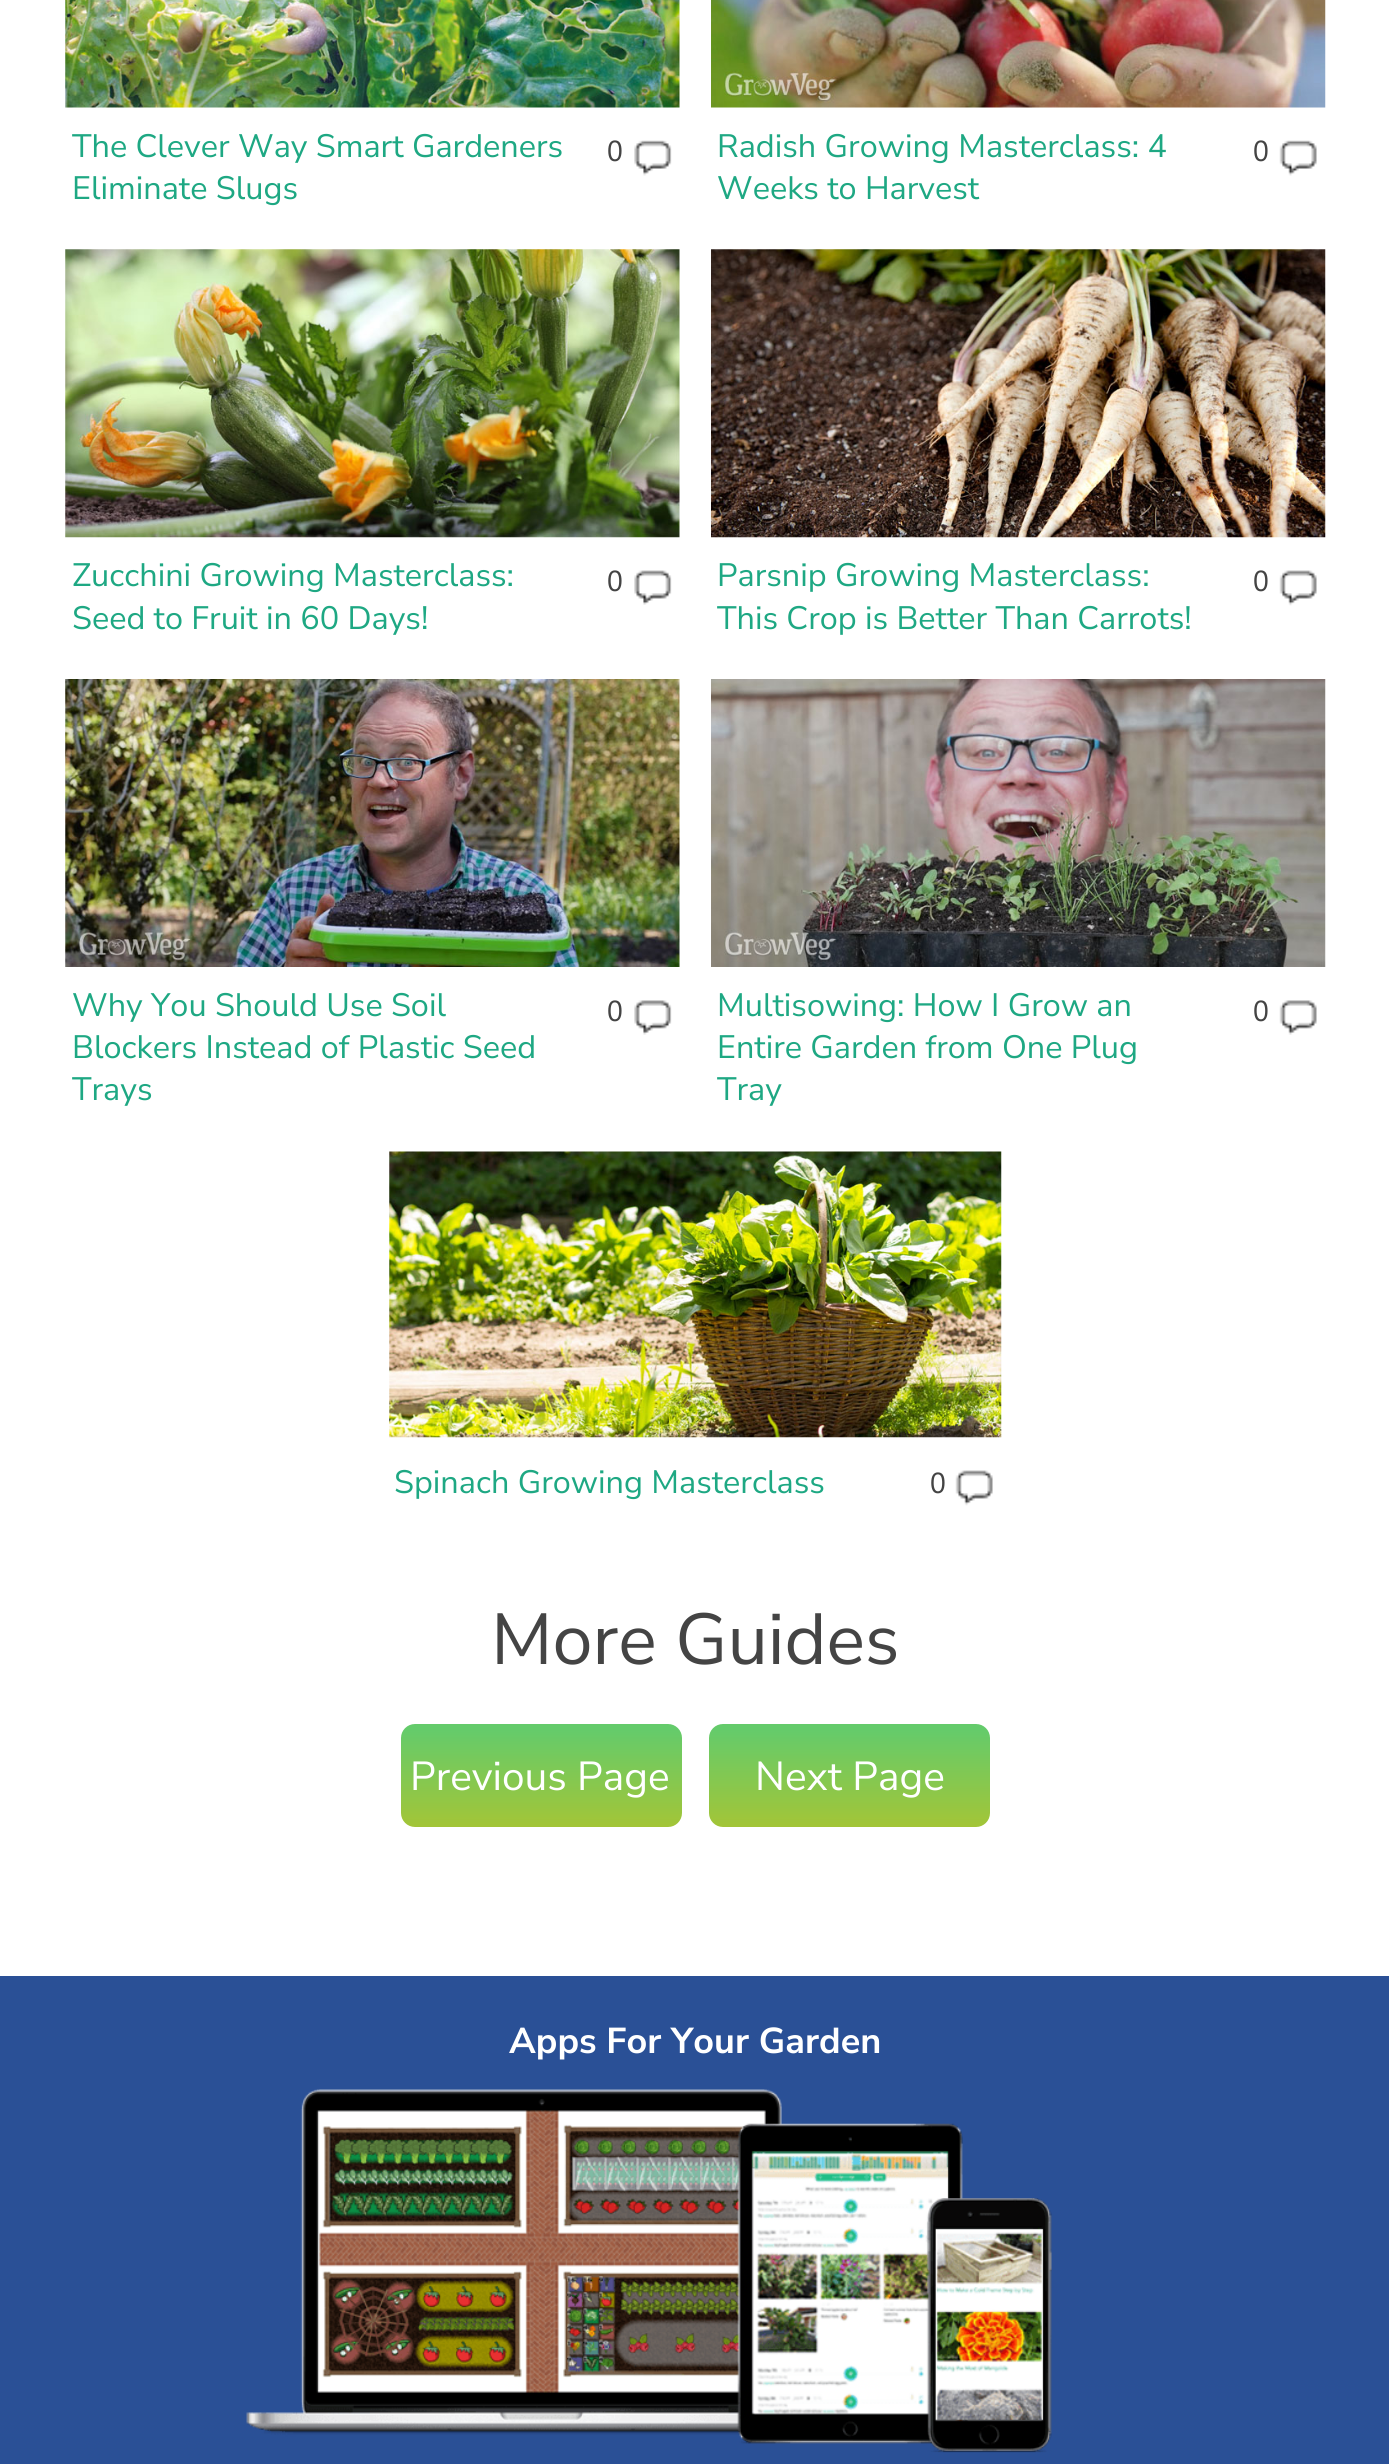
#include <cairo/cairo.h>
#include <math.h>
#include <stddef.h>


static void rounded_rect(cairo_t *cr, double x, double y, double w, double h, double r) {
  cairo_new_sub_path(cr);
  cairo_arc(cr, x + w - r, y + h - r, r, 0, M_PI / 2);
  cairo_arc(cr, x + r, y + h - r, r, M_PI / 2, M_PI);
  cairo_arc(cr, x + r, y + r, r, M_PI, 1.5 * M_PI);
  cairo_arc(cr, x + w - r, y + r, r, 1.5 * M_PI, 2 * M_PI);
  cairo_close_path(cr);
}

static void draw_image(cairo_t *cr, const char *path, double x, double y, double w, double h) {
  cairo_surface_t *image = cairo_image_surface_create_from_png(path);
  cairo_save(cr);
  cairo_set_source_surface(cr, image, x, y);
  cairo_rectangle(cr, x, y, w, h);
  cairo_fill(cr);
  cairo_restore(cr);
  cairo_surface_destroy(image);
}

static void draw(cairo_t *cr) {
  cairo_pattern_t *gradient;
  cairo_set_source_rgb(cr, 1, 1, 1);
  cairo_paint(cr);
  draw_image(cr, "images/1.png", 65, 0, 615, 108);
  draw_image(cr, "images/2.png", 634, 140, 38, 36);
  draw_image(cr, "images/3.png", 711, 0, 615, 108);
  draw_image(cr, "images/4.png", 1279, 140, 38, 36);
  draw_image(cr, "images/5.png", 65, 249, 615, 289);
  draw_image(cr, "images/6.png", 634, 570, 38, 35);
  draw_image(cr, "images/7.png", 711, 249, 615, 289);
  draw_image(cr, "images/8.png", 1279, 570, 38, 36);
  draw_image(cr, "images/9.png", 65, 679, 615, 288);
  draw_image(cr, "images/10.png", 634, 1000, 38, 35);
  draw_image(cr, "images/11.png", 711, 679, 615, 288);
  draw_image(cr, "images/12.png", 1279, 1000, 38, 35);
  draw_image(cr, "images/13.png", 389, 1151, 613, 287);
  draw_image(cr, "images/14.png", 955, 1470, 38, 36);
  gradient = cairo_pattern_create_linear(401, 1724, 401, 1827);
  cairo_pattern_add_color_stop_rgba(gradient, 0.05, 100 / 255.0, 203 / 255.0, 107 / 255.0, 1);
  cairo_pattern_add_color_stop_rgba(gradient, 1, 163 / 255.0, 197 / 255.0, 55 / 255.0, 1);
  cairo_set_source(cr, gradient);
  cairo_pattern_destroy(gradient);
  rounded_rect(cr, 401, 1724, 281, 103, 14);
  cairo_fill(cr);
  gradient = cairo_pattern_create_linear(709, 1724, 709, 1827);
  cairo_pattern_add_color_stop_rgba(gradient, 0.05, 100 / 255.0, 203 / 255.0, 107 / 255.0, 1);
  cairo_pattern_add_color_stop_rgba(gradient, 1, 163 / 255.0, 197 / 255.0, 55 / 255.0, 1);
  cairo_set_source(cr, gradient);
  cairo_pattern_destroy(gradient);
  rounded_rect(cr, 709, 1724, 281, 103, 14);
  cairo_fill(cr);
  cairo_set_source_rgb(cr, 42 / 255.0, 80 / 255.0, 150 / 255.0);
  cairo_rectangle(cr, 0, 1976, 1389, 488);
  cairo_fill(cr);
  draw_image(cr, "images/15.png", 246, 2089, 806, 364);
  cairo_select_font_face(cr, "Nunito Sans", CAIRO_FONT_SLANT_NORMAL, CAIRO_FONT_WEIGHT_NORMAL);
  cairo_set_font_size(cr, 32.4);
  cairo_set_source_rgb(cr, 30 / 255.0, 168 / 255.0, 131 / 255.0);
  cairo_move_to(cr, 72, 157);
  cairo_show_text(cr, "The Clever Way Smart Gardeners");
  cairo_move_to(cr, 72, 199);
  cairo_show_text(cr, "Eliminate Slugs");
  cairo_select_font_face(cr, "PT Sans", CAIRO_FONT_SLANT_NORMAL, CAIRO_FONT_WEIGHT_NORMAL);
  cairo_set_font_size(cr, 29);
  cairo_set_source_rgb(cr, 68 / 255.0, 68 / 255.0, 68 / 255.0);
  cairo_move_to(cr, 607, 161);
  cairo_show_text(cr, "0");
  cairo_select_font_face(cr, "Nunito Sans", CAIRO_FONT_SLANT_NORMAL, CAIRO_FONT_WEIGHT_NORMAL);
  cairo_set_font_size(cr, 32.4);
  cairo_set_source_rgb(cr, 30 / 255.0, 168 / 255.0, 131 / 255.0);
  cairo_move_to(cr, 717, 157);
  cairo_show_text(cr, "Radish Growing Masterclass: 4");
  cairo_move_to(cr, 717, 199);
  cairo_show_text(cr, "Weeks to Harvest");
  cairo_select_font_face(cr, "PT Sans", CAIRO_FONT_SLANT_NORMAL, CAIRO_FONT_WEIGHT_NORMAL);
  cairo_set_font_size(cr, 29);
  cairo_set_source_rgb(cr, 68 / 255.0, 68 / 255.0, 68 / 255.0);
  cairo_move_to(cr, 1253, 161);
  cairo_show_text(cr, "0");
  cairo_select_font_face(cr, "Nunito Sans", CAIRO_FONT_SLANT_NORMAL, CAIRO_FONT_WEIGHT_NORMAL);
  cairo_set_font_size(cr, 32.4);
  cairo_set_source_rgb(cr, 30 / 255.0, 168 / 255.0, 131 / 255.0);
  cairo_move_to(cr, 72, 586);
  cairo_show_text(cr, "Zucchini Growing Masterclass:");
  cairo_move_to(cr, 72, 629);
  cairo_show_text(cr, "Seed to Fruit in 60 Days!");
  cairo_select_font_face(cr, "PT Sans", CAIRO_FONT_SLANT_NORMAL, CAIRO_FONT_WEIGHT_NORMAL);
  cairo_set_font_size(cr, 29);
  cairo_set_source_rgb(cr, 68 / 255.0, 68 / 255.0, 68 / 255.0);
  cairo_move_to(cr, 607, 591);
  cairo_show_text(cr, "0");
  cairo_select_font_face(cr, "Nunito Sans", CAIRO_FONT_SLANT_NORMAL, CAIRO_FONT_WEIGHT_NORMAL);
  cairo_set_font_size(cr, 32.4);
  cairo_set_source_rgb(cr, 30 / 255.0, 168 / 255.0, 131 / 255.0);
  cairo_move_to(cr, 717, 586);
  cairo_show_text(cr, "Parsnip Growing Masterclass:");
  cairo_move_to(cr, 717, 629);
  cairo_show_text(cr, "This Crop is Better Than Carrots!");
  cairo_select_font_face(cr, "PT Sans", CAIRO_FONT_SLANT_NORMAL, CAIRO_FONT_WEIGHT_NORMAL);
  cairo_set_font_size(cr, 29);
  cairo_set_source_rgb(cr, 68 / 255.0, 68 / 255.0, 68 / 255.0);
  cairo_move_to(cr, 1253, 591);
  cairo_show_text(cr, "0");
  cairo_select_font_face(cr, "Nunito Sans", CAIRO_FONT_SLANT_NORMAL, CAIRO_FONT_WEIGHT_NORMAL);
  cairo_set_font_size(cr, 32.4);
  cairo_set_source_rgb(cr, 30 / 255.0, 168 / 255.0, 131 / 255.0);
  cairo_move_to(cr, 72, 1016);
  cairo_show_text(cr, "Why You Should Use Soil");
  cairo_move_to(cr, 72, 1058);
  cairo_show_text(cr, "Blockers Instead of Plastic Seed");
  cairo_move_to(cr, 72, 1100);
  cairo_show_text(cr, "Trays");
  cairo_select_font_face(cr, "PT Sans", CAIRO_FONT_SLANT_NORMAL, CAIRO_FONT_WEIGHT_NORMAL);
  cairo_set_font_size(cr, 29);
  cairo_set_source_rgb(cr, 68 / 255.0, 68 / 255.0, 68 / 255.0);
  cairo_move_to(cr, 607, 1021);
  cairo_show_text(cr, "0");
  cairo_select_font_face(cr, "Nunito Sans", CAIRO_FONT_SLANT_NORMAL, CAIRO_FONT_WEIGHT_NORMAL);
  cairo_set_font_size(cr, 32.4);
  cairo_set_source_rgb(cr, 30 / 255.0, 168 / 255.0, 131 / 255.0);
  cairo_move_to(cr, 717, 1016);
  cairo_show_text(cr, "Multisowing: How I Grow an");
  cairo_move_to(cr, 717, 1058);
  cairo_show_text(cr, "Entire Garden from One Plug");
  cairo_move_to(cr, 717, 1100);
  cairo_show_text(cr, "Tray");
  cairo_select_font_face(cr, "PT Sans", CAIRO_FONT_SLANT_NORMAL, CAIRO_FONT_WEIGHT_NORMAL);
  cairo_set_font_size(cr, 29);
  cairo_set_source_rgb(cr, 68 / 255.0, 68 / 255.0, 68 / 255.0);
  cairo_move_to(cr, 1253, 1021);
  cairo_show_text(cr, "0");
  cairo_select_font_face(cr, "Nunito Sans", CAIRO_FONT_SLANT_NORMAL, CAIRO_FONT_WEIGHT_NORMAL);
  cairo_set_font_size(cr, 32.4);
  cairo_set_source_rgb(cr, 30 / 255.0, 168 / 255.0, 131 / 255.0);
  cairo_move_to(cr, 394, 1493);
  cairo_show_text(cr, "Spinach Growing Masterclass");
  cairo_select_font_face(cr, "PT Sans", CAIRO_FONT_SLANT_NORMAL, CAIRO_FONT_WEIGHT_NORMAL);
  cairo_set_font_size(cr, 29);
  cairo_set_source_rgb(cr, 68 / 255.0, 68 / 255.0, 68 / 255.0);
  cairo_move_to(cr, 930, 1493);
  cairo_show_text(cr, "0");
  cairo_select_font_face(cr, "Nunito Sans", CAIRO_FONT_SLANT_NORMAL, CAIRO_FONT_WEIGHT_NORMAL);
  cairo_set_font_size(cr, 72);
  cairo_move_to(cr, 491, 1664);
  cairo_show_text(cr, "More Guides");
  cairo_set_font_size(cr, 40.5);
  cairo_set_source_rgb(cr, 1, 1, 1);
  cairo_move_to(cr, 410, 1790);
  cairo_show_text(cr, "Previous Page");
  cairo_move_to(cr, 755, 1790);
  cairo_show_text(cr, "Next Page");
  cairo_select_font_face(cr, "Nunito Sans", CAIRO_FONT_SLANT_NORMAL, CAIRO_FONT_WEIGHT_BOLD);
  cairo_set_font_size(cr, 36);
  cairo_move_to(cr, 509, 2053);
  cairo_show_text(cr, "Apps For Your Garden");
}

int main(void) {
  cairo_surface_t *surface = cairo_image_surface_create(CAIRO_FORMAT_RGB24, 1389, 2464);
  cairo_t *cr = cairo_create(surface);
  cairo_font_options_t *options = cairo_font_options_create();
  cairo_font_options_set_hint_metrics(options, CAIRO_HINT_METRICS_OFF);
  cairo_font_options_set_hint_style(options, CAIRO_HINT_STYLE_NONE);
  cairo_set_font_options(cr, options);
  cairo_set_miter_limit(cr, 4);
  draw(cr);
  cairo_surface_write_to_png(surface, "out.png");
  cairo_font_options_destroy(options);
  cairo_destroy(cr);
  cairo_surface_destroy(surface);
  return 0;
}
